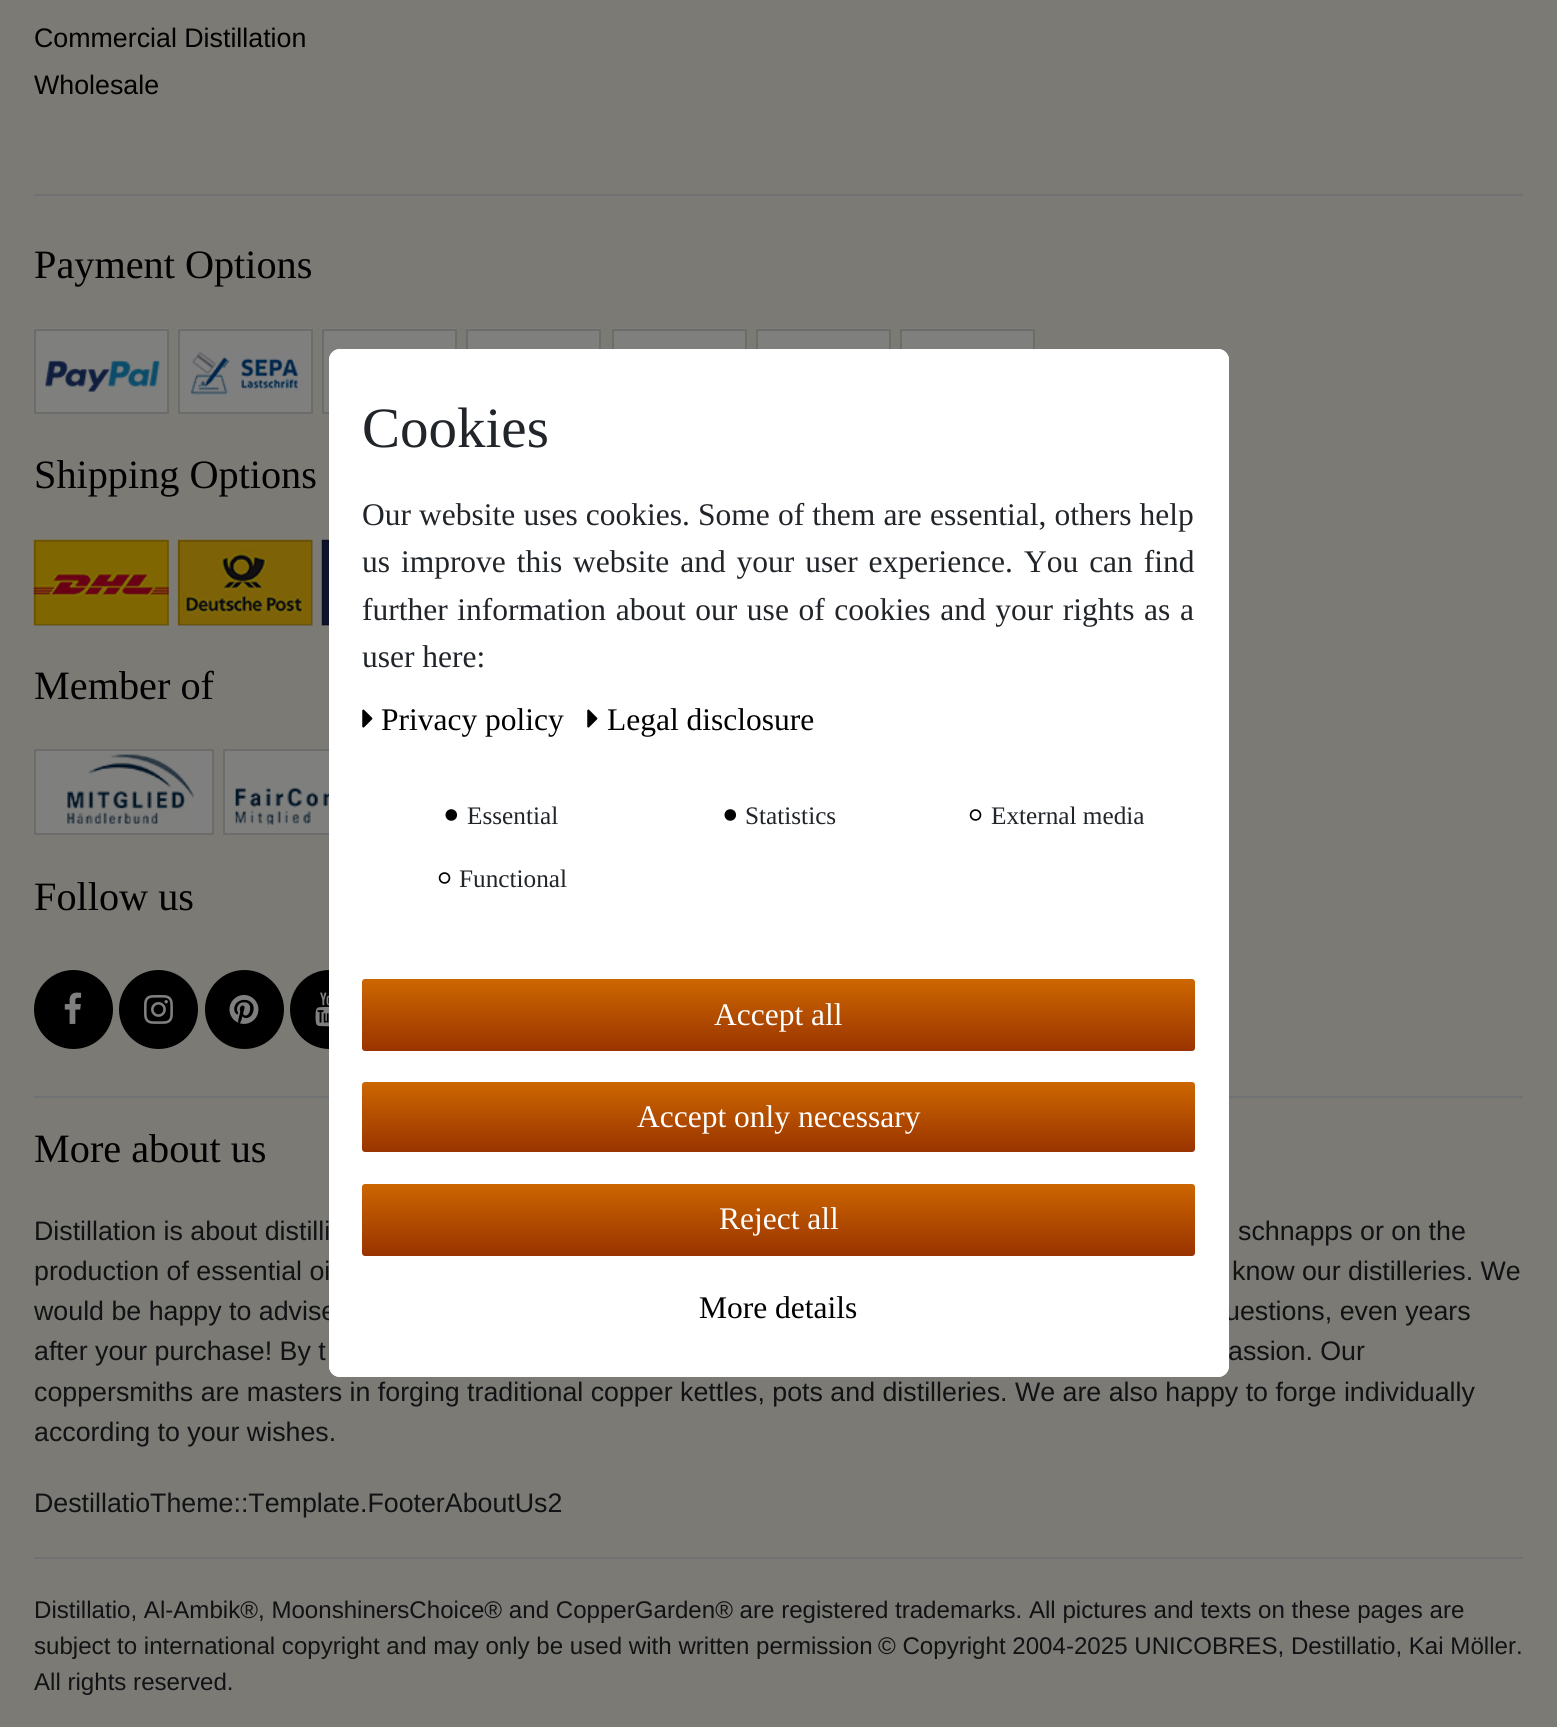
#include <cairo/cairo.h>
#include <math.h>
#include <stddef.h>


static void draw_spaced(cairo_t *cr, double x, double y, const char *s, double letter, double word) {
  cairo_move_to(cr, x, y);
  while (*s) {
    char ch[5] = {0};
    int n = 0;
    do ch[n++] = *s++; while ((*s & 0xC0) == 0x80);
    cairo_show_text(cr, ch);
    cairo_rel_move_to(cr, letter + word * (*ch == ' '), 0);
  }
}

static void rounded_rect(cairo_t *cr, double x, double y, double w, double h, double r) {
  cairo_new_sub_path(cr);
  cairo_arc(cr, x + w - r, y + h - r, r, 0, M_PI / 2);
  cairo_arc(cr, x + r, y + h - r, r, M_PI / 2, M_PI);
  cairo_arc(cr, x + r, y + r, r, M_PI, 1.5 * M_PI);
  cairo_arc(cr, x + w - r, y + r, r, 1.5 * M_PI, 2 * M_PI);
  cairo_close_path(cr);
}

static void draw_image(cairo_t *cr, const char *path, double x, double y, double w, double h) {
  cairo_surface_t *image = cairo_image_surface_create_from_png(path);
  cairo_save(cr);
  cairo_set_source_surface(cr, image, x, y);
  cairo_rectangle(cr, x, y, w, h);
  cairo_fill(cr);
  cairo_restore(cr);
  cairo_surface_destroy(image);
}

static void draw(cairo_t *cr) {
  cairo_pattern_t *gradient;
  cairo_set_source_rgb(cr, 249 / 255.0, 244 / 255.0, 235 / 255.0);
  cairo_paint(cr);
  cairo_set_source_rgb(cr, 222 / 255.0, 226 / 255.0, 230 / 255.0);
  cairo_rectangle(cr, 34, 194, 1489, 2);
  cairo_fill(cr);
  cairo_set_source_rgb(cr, 1, 1, 1);
  cairo_rectangle(cr, 34, 329, 135, 85);
  cairo_fill(cr);
  draw_image(cr, "images/1.png", 33, 328, 136, 85);
  cairo_rectangle(cr, 35, 330, 133, 83);
  cairo_set_source_rgba(cr, 0, 0, 0, 0.15);
  cairo_stroke(cr);
  cairo_set_source_rgb(cr, 1, 1, 1);
  cairo_rectangle(cr, 178, 329, 135, 85);
  cairo_fill(cr);
  draw_image(cr, "images/2.png", 177, 328, 136, 85);
  cairo_rectangle(cr, 179, 330, 133, 83);
  cairo_set_source_rgba(cr, 0, 0, 0, 0.15);
  cairo_stroke(cr);
  cairo_set_source_rgb(cr, 1, 1, 1);
  cairo_rectangle(cr, 322, 329, 135, 85);
  cairo_fill(cr);
  draw_image(cr, "images/3.png", 321, 328, 136, 85);
  cairo_rectangle(cr, 323, 330, 133, 83);
  cairo_set_source_rgba(cr, 0, 0, 0, 0.15);
  cairo_stroke(cr);
  cairo_set_source_rgb(cr, 1, 1, 1);
  cairo_rectangle(cr, 466, 329, 135, 20);
  cairo_fill(cr);
  draw_image(cr, "images/4.png", 467, 328, 134, 21);
  cairo_rectangle(cr, 467, 330, 133, 83);
  cairo_set_source_rgba(cr, 0, 0, 0, 0.15);
  cairo_stroke(cr);
  draw_image(cr, "images/5.png", 612, 328, 135, 21);
  cairo_rectangle(cr, 613, 330, 133, 83);
  cairo_stroke(cr);
  cairo_set_source_rgb(cr, 1, 1, 1);
  cairo_rectangle(cr, 756, 329, 1, 20);
  cairo_fill(cr);
  draw_image(cr, "images/6.png", 756, 328, 135, 21);
  cairo_rectangle(cr, 757, 330, 133, 83);
  cairo_set_source_rgba(cr, 0, 0, 0, 0.15);
  cairo_stroke(cr);
  draw_image(cr, "images/7.png", 900, 328, 135, 21);
  cairo_rectangle(cr, 901, 330, 133, 83);
  cairo_stroke(cr);
  cairo_set_source_rgb(cr, 1, 1, 1);
  cairo_rectangle(cr, 34, 540, 135, 86);
  cairo_fill(cr);
  draw_image(cr, "images/8.png", 33, 539, 136, 87);
  cairo_rectangle(cr, 35, 541, 133, 84);
  cairo_set_source_rgba(cr, 0, 0, 0, 0.15);
  cairo_stroke(cr);
  cairo_set_source_rgb(cr, 1, 1, 1);
  cairo_rectangle(cr, 178, 540, 135, 86);
  cairo_fill(cr);
  draw_image(cr, "images/9.png", 177, 539, 136, 87);
  cairo_rectangle(cr, 179, 541, 133, 84);
  cairo_set_source_rgba(cr, 0, 0, 0, 0.15);
  cairo_stroke(cr);
  cairo_set_source_rgb(cr, 1, 1, 1);
  cairo_rectangle(cr, 322, 625, 7, 1);
  cairo_fill(cr);
  draw_image(cr, "images/10.png", 321, 539, 8, 87);
  cairo_rectangle(cr, 323, 541, 133, 84);
  cairo_set_source_rgba(cr, 0, 0, 0, 0.15);
  cairo_stroke(cr);
  cairo_set_source_rgb(cr, 1, 1, 1);
  cairo_rectangle(cr, 34, 749, 180, 86);
  cairo_fill(cr);
  draw_image(cr, "images/11.png", 33, 749, 161, 85);
  cairo_rectangle(cr, 35, 750, 178, 84);
  cairo_set_source_rgba(cr, 0, 0, 0, 0.15);
  cairo_stroke(cr);
  cairo_set_source_rgb(cr, 1, 1, 1);
  cairo_rectangle(cr, 223, 834, 106, 1);
  cairo_fill(cr);
  draw_image(cr, "images/12.png", 222, 749, 107, 85);
  cairo_rectangle(cr, 224, 750, 212, 84);
  cairo_set_source_rgba(cr, 0, 0, 0, 0.15);
  cairo_stroke(cr);
  cairo_set_source_rgb(cr, 0, 0, 0);
  cairo_arc(cr, 73.5, 1009.5, 39.5, 0, 2 * M_PI);
  cairo_fill(cr);
  draw_image(cr, "images/13.png", 64, 992, 18, 32);
  cairo_arc(cr, 158.5, 1009.5, 39.5, 0, 2 * M_PI);
  cairo_fill(cr);
  draw_image(cr, "images/14.png", 144, 995, 29, 29);
  cairo_arc(cr, 244.5, 1009.5, 39.5, 0, 2 * M_PI);
  cairo_fill(cr);
  draw_image(cr, "images/15.png", 229, 995, 30, 29);
  cairo_arc(cr, 329.5, 1009.5, 39.5, 0, 2 * M_PI);
  cairo_fill(cr);
  draw_image(cr, "images/16.png", 315, 992, 14, 35);
  cairo_set_source_rgb(cr, 222 / 255.0, 226 / 255.0, 230 / 255.0);
  cairo_rectangle(cr, 34, 1096, 1489, 2);
  cairo_fill(cr);
  cairo_rectangle(cr, 34, 1557, 1489, 2);
  cairo_fill(cr);
  cairo_select_font_face(cr, "Liberation Sans", CAIRO_FONT_SLANT_NORMAL, CAIRO_FONT_WEIGHT_NORMAL);
  cairo_set_font_size(cr, 26.78);
  cairo_set_source_rgb(cr, 0, 0, 0);
  cairo_move_to(cr, 34, 47);
  cairo_show_text(cr, "Commercial Distillation");
  cairo_move_to(cr, 34, 94);
  cairo_show_text(cr, "Wholesale");
  cairo_select_font_face(cr, "Liberation Serif", CAIRO_FONT_SLANT_NORMAL, CAIRO_FONT_WEIGHT_NORMAL);
  cairo_set_font_size(cr, 40.25);
  cairo_move_to(cr, 34, 278);
  cairo_show_text(cr, "Payment Options");
  cairo_move_to(cr, 34, 488);
  cairo_show_text(cr, "Shipping Options");
  cairo_move_to(cr, 34, 699);
  cairo_show_text(cr, "Member of");
  cairo_move_to(cr, 34, 910);
  cairo_show_text(cr, "Follow us");
  cairo_move_to(cr, 34, 1162);
  cairo_show_text(cr, "More about us");
  cairo_select_font_face(cr, "Liberation Sans", CAIRO_FONT_SLANT_NORMAL, CAIRO_FONT_WEIGHT_NORMAL);
  cairo_set_font_size(cr, 26.78);
  cairo_set_source_rgb(cr, 33 / 255.0, 37 / 255.0, 41 / 255.0);
  cairo_move_to(cr, 34, 1240);
  cairo_show_text(cr, "Distillation is about distilli");
  cairo_move_to(cr, 1238, 1240);
  cairo_show_text(cr, "schnapps or on the");
  cairo_move_to(cr, 34, 1280);
  cairo_show_text(cr, "production of essential oi");
  cairo_move_to(cr, 1232, 1280);
  cairo_show_text(cr, "know our distilleries. We");
  cairo_move_to(cr, 34, 1320);
  cairo_show_text(cr, "would be happy to advise");
  cairo_move_to(cr, 1225, 1320);
  cairo_show_text(cr, "uestions, even years");
  cairo_move_to(cr, 34, 1360);
  cairo_show_text(cr, "after your purchase! By t");
  cairo_move_to(cr, 1228, 1360);
  cairo_show_text(cr, "assion. Our");
  cairo_move_to(cr, 34, 1401);
  cairo_show_text(cr, "coppersmiths are masters in forging traditional copper kettles, pots and distilleries. We are also happy to forge individually");
  cairo_move_to(cr, 34, 1441);
  cairo_show_text(cr, "according to your wishes.");
  cairo_move_to(cr, 34, 1512);
  cairo_show_text(cr, "DestillatioTheme::Template.FooterAboutUs2");
  cairo_set_font_size(cr, 24.1);
  cairo_move_to(cr, 34, 1618);
  cairo_show_text(cr, "Distillatio, Al-Ambik®, MoonshinersChoice® and CopperGarden® are registered trademarks. All pictures and texts on these pages are");
  cairo_move_to(cr, 34, 1654);
  cairo_show_text(cr, "subject to international copyright and may only be used with written permission");
  cairo_move_to(cr, 878, 1654);
  cairo_show_text(cr, "© Copyright 2004-2025 UNICOBRES, Destillatio, Kai Möller.");
  cairo_move_to(cr, 34, 1690);
  cairo_show_text(cr, "All rights reserved.");
  rounded_rect(cr, -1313.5, -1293.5, 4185, 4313, 1653.5);
  cairo_set_source_rgba(cr, 0, 0, 0, 0.5);
  cairo_set_line_width(cr, 3285);
  cairo_stroke(cr);
  cairo_set_source_rgb(cr, 1, 1, 1);
  rounded_rect(cr, 329, 349, 900, 1028, 11);
  cairo_fill(cr);
  cairo_select_font_face(cr, "Liberation Serif", CAIRO_FONT_SLANT_NORMAL, CAIRO_FONT_WEIGHT_NORMAL);
  cairo_set_font_size(cr, 57);
  cairo_set_source_rgb(cr, 33 / 255.0, 37 / 255.0, 41 / 255.0);
  cairo_move_to(cr, 362, 447);
  cairo_show_text(cr, "Cookies");
  cairo_set_font_size(cr, 31.5);
  draw_spaced(cr, 362, 525, "Our website uses cookies. Some of them are essential, others help", 0, 0.25);
  draw_spaced(cr, 362, 572, "us improve this website and your user experience.", 0, 3);
  draw_spaced(cr, 1024, 572, "You can find", 0, 3);
  draw_spaced(cr, 362, 620, "further information about our use of cookies and your rights as a", 0, 1.75);
  cairo_move_to(cr, 362, 667);
  cairo_show_text(cr, "user here:");
  draw_image(cr, "images/17.png", 362, 709, 11, 19);
  cairo_set_source_rgb(cr, 0, 0, 0);
  cairo_move_to(cr, 381, 730);
  cairo_show_text(cr, "Privacy policy");
  draw_image(cr, "images/17.png", 587, 709, 11, 19);
  cairo_move_to(cr, 607, 730);
  cairo_show_text(cr, "Legal disclosure");
  draw_image(cr, "images/18.png", 445, 809, 12, 12);
  cairo_set_font_size(cr, 25.25);
  cairo_set_source_rgb(cr, 33 / 255.0, 37 / 255.0, 41 / 255.0);
  cairo_move_to(cr, 467, 824);
  cairo_show_text(cr, "Essential");
  draw_image(cr, "images/18.png", 724, 809, 12, 12);
  cairo_move_to(cr, 745, 824);
  cairo_show_text(cr, "Statistics");
  draw_image(cr, "images/19.png", 969, 809, 13, 12);
  cairo_move_to(cr, 991, 824);
  cairo_show_text(cr, "External media");
  draw_image(cr, "images/19.png", 438, 872, 13, 12);
  cairo_move_to(cr, 459, 887);
  cairo_show_text(cr, "Functional");
  gradient = cairo_pattern_create_linear(779, 980, 779, 1052);
  cairo_pattern_add_color_stop_rgba(gradient, 0, 204 / 255.0, 102 / 255.0, 0, 1);
  cairo_pattern_add_color_stop_rgba(gradient, 1, 153 / 255.0, 51 / 255.0, 0, 1);
  cairo_set_source(cr, gradient);
  cairo_pattern_destroy(gradient);
  rounded_rect(cr, 362, 979, 833, 72, 3);
  cairo_fill(cr);
  cairo_set_font_size(cr, 31.5);
  cairo_set_source_rgb(cr, 1, 1, 1);
  cairo_move_to(cr, 714, 1025);
  cairo_show_text(cr, "Accept all");
  gradient = cairo_pattern_create_linear(779, 1083, 779, 1153);
  cairo_pattern_add_color_stop_rgba(gradient, 0, 204 / 255.0, 102 / 255.0, 0, 1);
  cairo_pattern_add_color_stop_rgba(gradient, 1, 153 / 255.0, 51 / 255.0, 0, 1);
  cairo_set_source(cr, gradient);
  cairo_pattern_destroy(gradient);
  rounded_rect(cr, 362, 1082, 833, 70, 3);
  cairo_fill(cr);
  cairo_set_source_rgb(cr, 1, 1, 1);
  cairo_move_to(cr, 637, 1127);
  cairo_show_text(cr, "Accept only necessary");
  gradient = cairo_pattern_create_linear(779, 1184, 779, 1256);
  cairo_pattern_add_color_stop_rgba(gradient, 0, 204 / 255.0, 102 / 255.0, 0, 1);
  cairo_pattern_add_color_stop_rgba(gradient, 1, 153 / 255.0, 51 / 255.0, 0, 1);
  cairo_set_source(cr, gradient);
  cairo_pattern_destroy(gradient);
  rounded_rect(cr, 362, 1184, 833, 72, 3);
  cairo_fill(cr);
  cairo_set_source_rgb(cr, 1, 1, 1);
  cairo_move_to(cr, 719, 1229);
  cairo_show_text(cr, "Reject all");
  cairo_set_source_rgb(cr, 0, 0, 0);
  cairo_move_to(cr, 699, 1318);
  cairo_show_text(cr, "More details");
}

int main(void) {
  cairo_surface_t *surface = cairo_image_surface_create(CAIRO_FORMAT_RGB24, 1557, 1727);
  cairo_t *cr = cairo_create(surface);
  cairo_font_options_t *options = cairo_font_options_create();
  cairo_font_options_set_hint_metrics(options, CAIRO_HINT_METRICS_OFF);
  cairo_font_options_set_hint_style(options, CAIRO_HINT_STYLE_NONE);
  cairo_set_font_options(cr, options);
  cairo_set_miter_limit(cr, 4);
  draw(cr);
  cairo_surface_write_to_png(surface, "out.png");
  cairo_font_options_destroy(options);
  cairo_destroy(cr);
  cairo_surface_destroy(surface);
  return 0;
}
